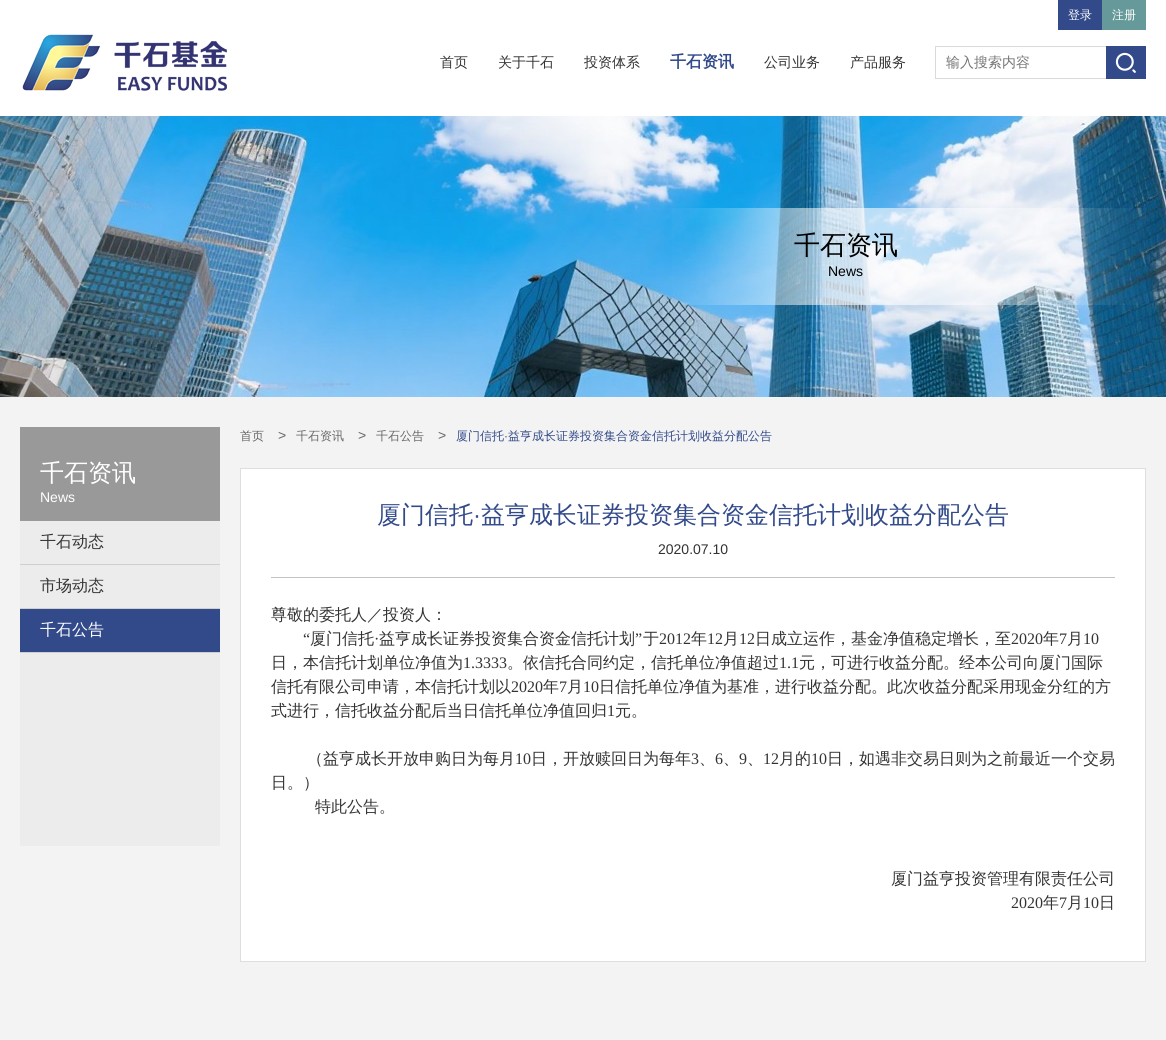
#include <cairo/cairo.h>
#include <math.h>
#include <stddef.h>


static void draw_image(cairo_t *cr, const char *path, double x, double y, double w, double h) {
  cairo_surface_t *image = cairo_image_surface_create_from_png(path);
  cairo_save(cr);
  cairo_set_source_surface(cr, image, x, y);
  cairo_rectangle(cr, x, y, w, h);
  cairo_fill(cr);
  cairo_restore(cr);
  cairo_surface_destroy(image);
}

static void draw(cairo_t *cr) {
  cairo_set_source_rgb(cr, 1, 1, 1);
  cairo_paint(cr);
  cairo_set_source_rgb(cr, 50 / 255.0, 74 / 255.0, 138 / 255.0);
  cairo_rectangle(cr, 1058, 0, 44, 30);
  cairo_fill(cr);
  cairo_set_source_rgb(cr, 102 / 255.0, 153 / 255.0, 153 / 255.0);
  cairo_rectangle(cr, 1102, 0, 44, 30);
  cairo_fill(cr);
  draw_image(cr, "images/1.png", 22, 34, 206, 57);
  cairo_set_source_rgb(cr, 218 / 255.0, 218 / 255.0, 218 / 255.0);
  cairo_rectangle(cr, 935, 46, 171, 1);
  cairo_fill(cr);
  cairo_rectangle(cr, 935, 78, 171, 1);
  cairo_fill(cr);
  cairo_rectangle(cr, 935, 46, 1, 33);
  cairo_fill(cr);
  cairo_set_source_rgb(cr, 50 / 255.0, 74 / 255.0, 138 / 255.0);
  cairo_rectangle(cr, 1106, 46, 40, 33);
  cairo_fill(cr);
  draw_image(cr, "images/2.png", 1115, 52, 21, 21);
  draw_image(cr, "images/3.png", 0, 116, 1166, 281);
  draw_image(cr, "images/4.png", 672, 208, 474, 97);
  cairo_set_source_rgb(cr, 243 / 255.0, 243 / 255.0, 243 / 255.0);
  cairo_rectangle(cr, 0, 397, 1166, 643);
  cairo_fill(cr);
  cairo_set_source_rgb(cr, 236 / 255.0, 236 / 255.0, 236 / 255.0);
  cairo_rectangle(cr, 20, 521, 200, 325);
  cairo_fill(cr);
  cairo_set_source_rgb(cr, 153 / 255.0, 153 / 255.0, 153 / 255.0);
  cairo_rectangle(cr, 20, 427, 200, 94);
  cairo_fill(cr);
  cairo_set_source_rgb(cr, 207 / 255.0, 207 / 255.0, 207 / 255.0);
  cairo_rectangle(cr, 20, 564, 200, 1);
  cairo_fill(cr);
  cairo_rectangle(cr, 20, 608, 200, 1);
  cairo_fill(cr);
  cairo_set_source_rgb(cr, 50 / 255.0, 74 / 255.0, 138 / 255.0);
  cairo_rectangle(cr, 20, 609, 200, 43);
  cairo_fill(cr);
  cairo_set_source_rgb(cr, 207 / 255.0, 207 / 255.0, 207 / 255.0);
  cairo_rectangle(cr, 20, 652, 200, 1);
  cairo_fill(cr);
  cairo_set_source_rgb(cr, 1, 1, 1);
  cairo_rectangle(cr, 240.5, 468.5, 905, 493);
  cairo_fill_preserve(cr);
  cairo_set_source_rgb(cr, 222 / 255.0, 222 / 255.0, 222 / 255.0);
  cairo_set_line_width(cr, 1);
  cairo_stroke(cr);
  cairo_set_source_rgb(cr, 195 / 255.0, 195 / 255.0, 195 / 255.0);
  cairo_rectangle(cr, 271, 577, 844, 1);
  cairo_fill(cr);
  cairo_select_font_face(cr, "WenQuanYi Zen Hei Medium", CAIRO_FONT_SLANT_NORMAL, CAIRO_FONT_WEIGHT_NORMAL);
  cairo_set_font_size(cr, 12);
  cairo_set_source_rgb(cr, 1, 1, 1);
  cairo_move_to(cr, 1068, 19);
  cairo_show_text(cr, "登录");
  cairo_move_to(cr, 1112, 19);
  cairo_show_text(cr, "注册");
  cairo_set_font_size(cr, 14);
  cairo_set_source_rgb(cr, 51 / 255.0, 51 / 255.0, 51 / 255.0);
  cairo_move_to(cr, 440, 67);
  cairo_show_text(cr, "首页");
  cairo_move_to(cr, 498, 67);
  cairo_show_text(cr, "关于千石");
  cairo_move_to(cr, 584, 67);
  cairo_show_text(cr, "投资体系");
  cairo_select_font_face(cr, "WenQuanYi Zen Hei", CAIRO_FONT_SLANT_NORMAL, CAIRO_FONT_WEIGHT_BOLD);
  cairo_set_font_size(cr, 16);
  cairo_set_source_rgb(cr, 50 / 255.0, 74 / 255.0, 138 / 255.0);
  cairo_move_to(cr, 670, 67);
  cairo_show_text(cr, "千石资讯");
  cairo_select_font_face(cr, "WenQuanYi Zen Hei Medium", CAIRO_FONT_SLANT_NORMAL, CAIRO_FONT_WEIGHT_NORMAL);
  cairo_set_font_size(cr, 14);
  cairo_set_source_rgb(cr, 51 / 255.0, 51 / 255.0, 51 / 255.0);
  cairo_move_to(cr, 764, 67);
  cairo_show_text(cr, "公司业务");
  cairo_move_to(cr, 850, 67);
  cairo_show_text(cr, "产品服务");
  cairo_set_source_rgb(cr, 117 / 255.0, 117 / 255.0, 117 / 255.0);
  cairo_move_to(cr, 946, 67);
  cairo_show_text(cr, "输入搜索内容");
  cairo_set_font_size(cr, 26);
  cairo_set_source_rgb(cr, 0, 0, 0);
  cairo_move_to(cr, 794, 254);
  cairo_show_text(cr, "千石资讯");
  cairo_select_font_face(cr, "Liberation Sans", CAIRO_FONT_SLANT_NORMAL, CAIRO_FONT_WEIGHT_NORMAL);
  cairo_set_font_size(cr, 14);
  cairo_move_to(cr, 828, 276);
  cairo_show_text(cr, "News");
  cairo_select_font_face(cr, "WenQuanYi Zen Hei Medium", CAIRO_FONT_SLANT_NORMAL, CAIRO_FONT_WEIGHT_NORMAL);
  cairo_set_font_size(cr, 24);
  cairo_set_source_rgb(cr, 1, 1, 1);
  cairo_move_to(cr, 40, 481);
  cairo_show_text(cr, "千石资讯");
  cairo_select_font_face(cr, "Liberation Sans", CAIRO_FONT_SLANT_NORMAL, CAIRO_FONT_WEIGHT_NORMAL);
  cairo_set_font_size(cr, 14);
  cairo_move_to(cr, 40, 502);
  cairo_show_text(cr, "News");
  cairo_select_font_face(cr, "WenQuanYi Zen Hei Medium", CAIRO_FONT_SLANT_NORMAL, CAIRO_FONT_WEIGHT_NORMAL);
  cairo_set_font_size(cr, 16);
  cairo_set_source_rgb(cr, 51 / 255.0, 51 / 255.0, 51 / 255.0);
  cairo_move_to(cr, 40, 547);
  cairo_show_text(cr, "千石动态");
  cairo_move_to(cr, 40, 591);
  cairo_show_text(cr, "市场动态");
  cairo_set_source_rgb(cr, 1, 1, 1);
  cairo_move_to(cr, 40, 635);
  cairo_show_text(cr, "千石公告");
  cairo_set_font_size(cr, 12);
  cairo_set_source_rgb(cr, 102 / 255.0, 102 / 255.0, 102 / 255.0);
  cairo_move_to(cr, 240, 440);
  cairo_show_text(cr, "首页");
  cairo_select_font_face(cr, "Liberation Sans", CAIRO_FONT_SLANT_NORMAL, CAIRO_FONT_WEIGHT_NORMAL);
  cairo_set_font_size(cr, 14);
  cairo_move_to(cr, 278, 440);
  cairo_show_text(cr, ">");
  cairo_select_font_face(cr, "WenQuanYi Zen Hei Medium", CAIRO_FONT_SLANT_NORMAL, CAIRO_FONT_WEIGHT_NORMAL);
  cairo_set_font_size(cr, 12);
  cairo_move_to(cr, 296, 440);
  cairo_show_text(cr, "千石资讯");
  cairo_select_font_face(cr, "Liberation Sans", CAIRO_FONT_SLANT_NORMAL, CAIRO_FONT_WEIGHT_NORMAL);
  cairo_set_font_size(cr, 14);
  cairo_move_to(cr, 358, 440);
  cairo_show_text(cr, ">");
  cairo_select_font_face(cr, "WenQuanYi Zen Hei Medium", CAIRO_FONT_SLANT_NORMAL, CAIRO_FONT_WEIGHT_NORMAL);
  cairo_set_font_size(cr, 12);
  cairo_move_to(cr, 376, 440);
  cairo_show_text(cr, "千石公告");
  cairo_select_font_face(cr, "Liberation Sans", CAIRO_FONT_SLANT_NORMAL, CAIRO_FONT_WEIGHT_NORMAL);
  cairo_set_font_size(cr, 14);
  cairo_move_to(cr, 438, 440);
  cairo_show_text(cr, ">");
  cairo_select_font_face(cr, "WenQuanYi Zen Hei Medium", CAIRO_FONT_SLANT_NORMAL, CAIRO_FONT_WEIGHT_NORMAL);
  cairo_set_font_size(cr, 12);
  cairo_set_source_rgb(cr, 50 / 255.0, 74 / 255.0, 138 / 255.0);
  cairo_move_to(cr, 456, 440);
  cairo_show_text(cr, "厦门信托");
  cairo_select_font_face(cr, "Liberation Sans", CAIRO_FONT_SLANT_NORMAL, CAIRO_FONT_WEIGHT_NORMAL);
  cairo_move_to(cr, 504, 440);
  cairo_show_text(cr, "·");
  cairo_select_font_face(cr, "WenQuanYi Zen Hei Medium", CAIRO_FONT_SLANT_NORMAL, CAIRO_FONT_WEIGHT_NORMAL);
  cairo_move_to(cr, 508, 440);
  cairo_show_text(cr, "益亨成长证券投资集合资金信托计划收益分配公告");
  cairo_set_font_size(cr, 24);
  cairo_move_to(cr, 377, 523);
  cairo_show_text(cr, "厦门信托");
  cairo_select_font_face(cr, "Liberation Sans", CAIRO_FONT_SLANT_NORMAL, CAIRO_FONT_WEIGHT_NORMAL);
  cairo_move_to(cr, 473, 523);
  cairo_show_text(cr, "·");
  cairo_select_font_face(cr, "WenQuanYi Zen Hei Medium", CAIRO_FONT_SLANT_NORMAL, CAIRO_FONT_WEIGHT_NORMAL);
  cairo_move_to(cr, 481, 523);
  cairo_show_text(cr, "益亨成长证券投资集合资金信托计划收益分配公告");
  cairo_select_font_face(cr, "Liberation Sans", CAIRO_FONT_SLANT_NORMAL, CAIRO_FONT_WEIGHT_NORMAL);
  cairo_set_font_size(cr, 14);
  cairo_set_source_rgb(cr, 51 / 255.0, 51 / 255.0, 51 / 255.0);
  cairo_move_to(cr, 658, 554);
  cairo_show_text(cr, "2020.07.10");
  cairo_select_font_face(cr, "WenQuanYi Zen Hei Medium", CAIRO_FONT_SLANT_NORMAL, CAIRO_FONT_WEIGHT_NORMAL);
  cairo_set_font_size(cr, 16);
  cairo_move_to(cr, 271, 620);
  cairo_show_text(cr, "尊敬的委托人／投资人：");
  cairo_select_font_face(cr, "Liberation Serif", CAIRO_FONT_SLANT_NORMAL, CAIRO_FONT_WEIGHT_NORMAL);
  cairo_move_to(cr, 303, 644);
  cairo_show_text(cr, "“");
  cairo_select_font_face(cr, "WenQuanYi Zen Hei Medium", CAIRO_FONT_SLANT_NORMAL, CAIRO_FONT_WEIGHT_NORMAL);
  cairo_move_to(cr, 310, 644);
  cairo_show_text(cr, "厦门信托");
  cairo_select_font_face(cr, "Liberation Serif", CAIRO_FONT_SLANT_NORMAL, CAIRO_FONT_WEIGHT_NORMAL);
  cairo_move_to(cr, 374, 644);
  cairo_show_text(cr, "·");
  cairo_select_font_face(cr, "WenQuanYi Zen Hei Medium", CAIRO_FONT_SLANT_NORMAL, CAIRO_FONT_WEIGHT_NORMAL);
  cairo_move_to(cr, 379, 644);
  cairo_show_text(cr, "益亨成长证券投资集合资金信托计划");
  cairo_select_font_face(cr, "Liberation Serif", CAIRO_FONT_SLANT_NORMAL, CAIRO_FONT_WEIGHT_NORMAL);
  cairo_move_to(cr, 635, 644);
  cairo_show_text(cr, "”");
  cairo_select_font_face(cr, "WenQuanYi Zen Hei Medium", CAIRO_FONT_SLANT_NORMAL, CAIRO_FONT_WEIGHT_NORMAL);
  cairo_move_to(cr, 643, 644);
  cairo_show_text(cr, "于");
  cairo_select_font_face(cr, "Liberation Serif", CAIRO_FONT_SLANT_NORMAL, CAIRO_FONT_WEIGHT_NORMAL);
  cairo_move_to(cr, 659, 644);
  cairo_show_text(cr, "2012");
  cairo_select_font_face(cr, "WenQuanYi Zen Hei Medium", CAIRO_FONT_SLANT_NORMAL, CAIRO_FONT_WEIGHT_NORMAL);
  cairo_move_to(cr, 691, 644);
  cairo_show_text(cr, "年");
  cairo_select_font_face(cr, "Liberation Serif", CAIRO_FONT_SLANT_NORMAL, CAIRO_FONT_WEIGHT_NORMAL);
  cairo_move_to(cr, 707, 644);
  cairo_show_text(cr, "12");
  cairo_select_font_face(cr, "WenQuanYi Zen Hei Medium", CAIRO_FONT_SLANT_NORMAL, CAIRO_FONT_WEIGHT_NORMAL);
  cairo_move_to(cr, 723, 644);
  cairo_show_text(cr, "月");
  cairo_select_font_face(cr, "Liberation Serif", CAIRO_FONT_SLANT_NORMAL, CAIRO_FONT_WEIGHT_NORMAL);
  cairo_move_to(cr, 739, 644);
  cairo_show_text(cr, "12");
  cairo_select_font_face(cr, "WenQuanYi Zen Hei Medium", CAIRO_FONT_SLANT_NORMAL, CAIRO_FONT_WEIGHT_NORMAL);
  cairo_move_to(cr, 755, 644);
  cairo_show_text(cr, "日成立运作，基金净值稳定增长，至");
  cairo_select_font_face(cr, "Liberation Serif", CAIRO_FONT_SLANT_NORMAL, CAIRO_FONT_WEIGHT_NORMAL);
  cairo_move_to(cr, 1011, 644);
  cairo_show_text(cr, "2020");
  cairo_select_font_face(cr, "WenQuanYi Zen Hei Medium", CAIRO_FONT_SLANT_NORMAL, CAIRO_FONT_WEIGHT_NORMAL);
  cairo_move_to(cr, 1043, 644);
  cairo_show_text(cr, "年");
  cairo_select_font_face(cr, "Liberation Serif", CAIRO_FONT_SLANT_NORMAL, CAIRO_FONT_WEIGHT_NORMAL);
  cairo_move_to(cr, 1059, 644);
  cairo_show_text(cr, "7");
  cairo_select_font_face(cr, "WenQuanYi Zen Hei Medium", CAIRO_FONT_SLANT_NORMAL, CAIRO_FONT_WEIGHT_NORMAL);
  cairo_move_to(cr, 1067, 644);
  cairo_show_text(cr, "月");
  cairo_select_font_face(cr, "Liberation Serif", CAIRO_FONT_SLANT_NORMAL, CAIRO_FONT_WEIGHT_NORMAL);
  cairo_move_to(cr, 1083, 644);
  cairo_show_text(cr, "10");
  cairo_select_font_face(cr, "WenQuanYi Zen Hei Medium", CAIRO_FONT_SLANT_NORMAL, CAIRO_FONT_WEIGHT_NORMAL);
  cairo_move_to(cr, 271, 668);
  cairo_show_text(cr, "日，本信托计划单位净值为");
  cairo_select_font_face(cr, "Liberation Serif", CAIRO_FONT_SLANT_NORMAL, CAIRO_FONT_WEIGHT_NORMAL);
  cairo_move_to(cr, 463, 668);
  cairo_show_text(cr, "1.3333");
  cairo_select_font_face(cr, "WenQuanYi Zen Hei Medium", CAIRO_FONT_SLANT_NORMAL, CAIRO_FONT_WEIGHT_NORMAL);
  cairo_move_to(cr, 507, 668);
  cairo_show_text(cr, "。依信托合同约定，信托单位净值超过");
  cairo_select_font_face(cr, "Liberation Serif", CAIRO_FONT_SLANT_NORMAL, CAIRO_FONT_WEIGHT_NORMAL);
  cairo_move_to(cr, 779, 668);
  cairo_show_text(cr, "1.1");
  cairo_select_font_face(cr, "WenQuanYi Zen Hei Medium", CAIRO_FONT_SLANT_NORMAL, CAIRO_FONT_WEIGHT_NORMAL);
  cairo_move_to(cr, 799, 668);
  cairo_show_text(cr, "元，可进行收益分配。经本公司向厦门国际");
  cairo_move_to(cr, 271, 692);
  cairo_show_text(cr, "信托有限公司申请，本信托计划以");
  cairo_select_font_face(cr, "Liberation Serif", CAIRO_FONT_SLANT_NORMAL, CAIRO_FONT_WEIGHT_NORMAL);
  cairo_move_to(cr, 511, 692);
  cairo_show_text(cr, "2020");
  cairo_select_font_face(cr, "WenQuanYi Zen Hei Medium", CAIRO_FONT_SLANT_NORMAL, CAIRO_FONT_WEIGHT_NORMAL);
  cairo_move_to(cr, 543, 692);
  cairo_show_text(cr, "年");
  cairo_select_font_face(cr, "Liberation Serif", CAIRO_FONT_SLANT_NORMAL, CAIRO_FONT_WEIGHT_NORMAL);
  cairo_move_to(cr, 559, 692);
  cairo_show_text(cr, "7");
  cairo_select_font_face(cr, "WenQuanYi Zen Hei Medium", CAIRO_FONT_SLANT_NORMAL, CAIRO_FONT_WEIGHT_NORMAL);
  cairo_move_to(cr, 567, 692);
  cairo_show_text(cr, "月");
  cairo_select_font_face(cr, "Liberation Serif", CAIRO_FONT_SLANT_NORMAL, CAIRO_FONT_WEIGHT_NORMAL);
  cairo_move_to(cr, 583, 692);
  cairo_show_text(cr, "10");
  cairo_select_font_face(cr, "WenQuanYi Zen Hei Medium", CAIRO_FONT_SLANT_NORMAL, CAIRO_FONT_WEIGHT_NORMAL);
  cairo_move_to(cr, 599, 692);
  cairo_show_text(cr, "日信托单位净值为基准，进行收益分配。此次收益分配采用现金分红的方");
  cairo_move_to(cr, 271, 716);
  cairo_show_text(cr, "式进行，信托收益分配后当日信托单位净值回归");
  cairo_select_font_face(cr, "Liberation Serif", CAIRO_FONT_SLANT_NORMAL, CAIRO_FONT_WEIGHT_NORMAL);
  cairo_move_to(cr, 607, 716);
  cairo_show_text(cr, "1");
  cairo_select_font_face(cr, "WenQuanYi Zen Hei Medium", CAIRO_FONT_SLANT_NORMAL, CAIRO_FONT_WEIGHT_NORMAL);
  cairo_move_to(cr, 615, 716);
  cairo_show_text(cr, "元。");
  cairo_move_to(cr, 307, 764);
  cairo_show_text(cr, "（益亨成长开放申购日为每月");
  cairo_select_font_face(cr, "Liberation Serif", CAIRO_FONT_SLANT_NORMAL, CAIRO_FONT_WEIGHT_NORMAL);
  cairo_move_to(cr, 515, 764);
  cairo_show_text(cr, "10");
  cairo_select_font_face(cr, "WenQuanYi Zen Hei Medium", CAIRO_FONT_SLANT_NORMAL, CAIRO_FONT_WEIGHT_NORMAL);
  cairo_move_to(cr, 531, 764);
  cairo_show_text(cr, "日，开放赎回日为每年");
  cairo_select_font_face(cr, "Liberation Serif", CAIRO_FONT_SLANT_NORMAL, CAIRO_FONT_WEIGHT_NORMAL);
  cairo_move_to(cr, 691, 764);
  cairo_show_text(cr, "3");
  cairo_select_font_face(cr, "WenQuanYi Zen Hei Medium", CAIRO_FONT_SLANT_NORMAL, CAIRO_FONT_WEIGHT_NORMAL);
  cairo_move_to(cr, 699, 764);
  cairo_show_text(cr, "、");
  cairo_select_font_face(cr, "Liberation Serif", CAIRO_FONT_SLANT_NORMAL, CAIRO_FONT_WEIGHT_NORMAL);
  cairo_move_to(cr, 715, 764);
  cairo_show_text(cr, "6");
  cairo_select_font_face(cr, "WenQuanYi Zen Hei Medium", CAIRO_FONT_SLANT_NORMAL, CAIRO_FONT_WEIGHT_NORMAL);
  cairo_move_to(cr, 723, 764);
  cairo_show_text(cr, "、");
  cairo_select_font_face(cr, "Liberation Serif", CAIRO_FONT_SLANT_NORMAL, CAIRO_FONT_WEIGHT_NORMAL);
  cairo_move_to(cr, 739, 764);
  cairo_show_text(cr, "9");
  cairo_select_font_face(cr, "WenQuanYi Zen Hei Medium", CAIRO_FONT_SLANT_NORMAL, CAIRO_FONT_WEIGHT_NORMAL);
  cairo_move_to(cr, 747, 764);
  cairo_show_text(cr, "、");
  cairo_select_font_face(cr, "Liberation Serif", CAIRO_FONT_SLANT_NORMAL, CAIRO_FONT_WEIGHT_NORMAL);
  cairo_move_to(cr, 763, 764);
  cairo_show_text(cr, "12");
  cairo_select_font_face(cr, "WenQuanYi Zen Hei Medium", CAIRO_FONT_SLANT_NORMAL, CAIRO_FONT_WEIGHT_NORMAL);
  cairo_move_to(cr, 779, 764);
  cairo_show_text(cr, "月的");
  cairo_select_font_face(cr, "Liberation Serif", CAIRO_FONT_SLANT_NORMAL, CAIRO_FONT_WEIGHT_NORMAL);
  cairo_move_to(cr, 811, 764);
  cairo_show_text(cr, "10");
  cairo_select_font_face(cr, "WenQuanYi Zen Hei Medium", CAIRO_FONT_SLANT_NORMAL, CAIRO_FONT_WEIGHT_NORMAL);
  cairo_move_to(cr, 827, 764);
  cairo_show_text(cr, "日，如遇非交易日则为之前最近一个交易");
  cairo_move_to(cr, 271, 788);
  cairo_show_text(cr, "日。）");
  cairo_move_to(cr, 315, 812);
  cairo_show_text(cr, "特此公告。");
  cairo_move_to(cr, 891, 884);
  cairo_show_text(cr, "厦门益亨投资管理有限责任公司");
  cairo_select_font_face(cr, "Liberation Serif", CAIRO_FONT_SLANT_NORMAL, CAIRO_FONT_WEIGHT_NORMAL);
  cairo_move_to(cr, 1011, 908);
  cairo_show_text(cr, "2020");
  cairo_select_font_face(cr, "WenQuanYi Zen Hei Medium", CAIRO_FONT_SLANT_NORMAL, CAIRO_FONT_WEIGHT_NORMAL);
  cairo_move_to(cr, 1043, 908);
  cairo_show_text(cr, "年");
  cairo_select_font_face(cr, "Liberation Serif", CAIRO_FONT_SLANT_NORMAL, CAIRO_FONT_WEIGHT_NORMAL);
  cairo_move_to(cr, 1059, 908);
  cairo_show_text(cr, "7");
  cairo_select_font_face(cr, "WenQuanYi Zen Hei Medium", CAIRO_FONT_SLANT_NORMAL, CAIRO_FONT_WEIGHT_NORMAL);
  cairo_move_to(cr, 1067, 908);
  cairo_show_text(cr, "月");
  cairo_select_font_face(cr, "Liberation Serif", CAIRO_FONT_SLANT_NORMAL, CAIRO_FONT_WEIGHT_NORMAL);
  cairo_move_to(cr, 1083, 908);
  cairo_show_text(cr, "10");
  cairo_select_font_face(cr, "WenQuanYi Zen Hei Medium", CAIRO_FONT_SLANT_NORMAL, CAIRO_FONT_WEIGHT_NORMAL);
  cairo_move_to(cr, 1099, 908);
  cairo_show_text(cr, "日");
}

int main(void) {
  cairo_surface_t *surface = cairo_image_surface_create(CAIRO_FORMAT_RGB24, 1166, 1040);
  cairo_t *cr = cairo_create(surface);
  cairo_font_options_t *options = cairo_font_options_create();
  cairo_font_options_set_hint_metrics(options, CAIRO_HINT_METRICS_OFF);
  cairo_font_options_set_hint_style(options, CAIRO_HINT_STYLE_NONE);
  cairo_set_font_options(cr, options);
  cairo_set_miter_limit(cr, 4);
  draw(cr);
  cairo_surface_write_to_png(surface, "out.png");
  cairo_font_options_destroy(options);
  cairo_destroy(cr);
  cairo_surface_destroy(surface);
  return 0;
}
